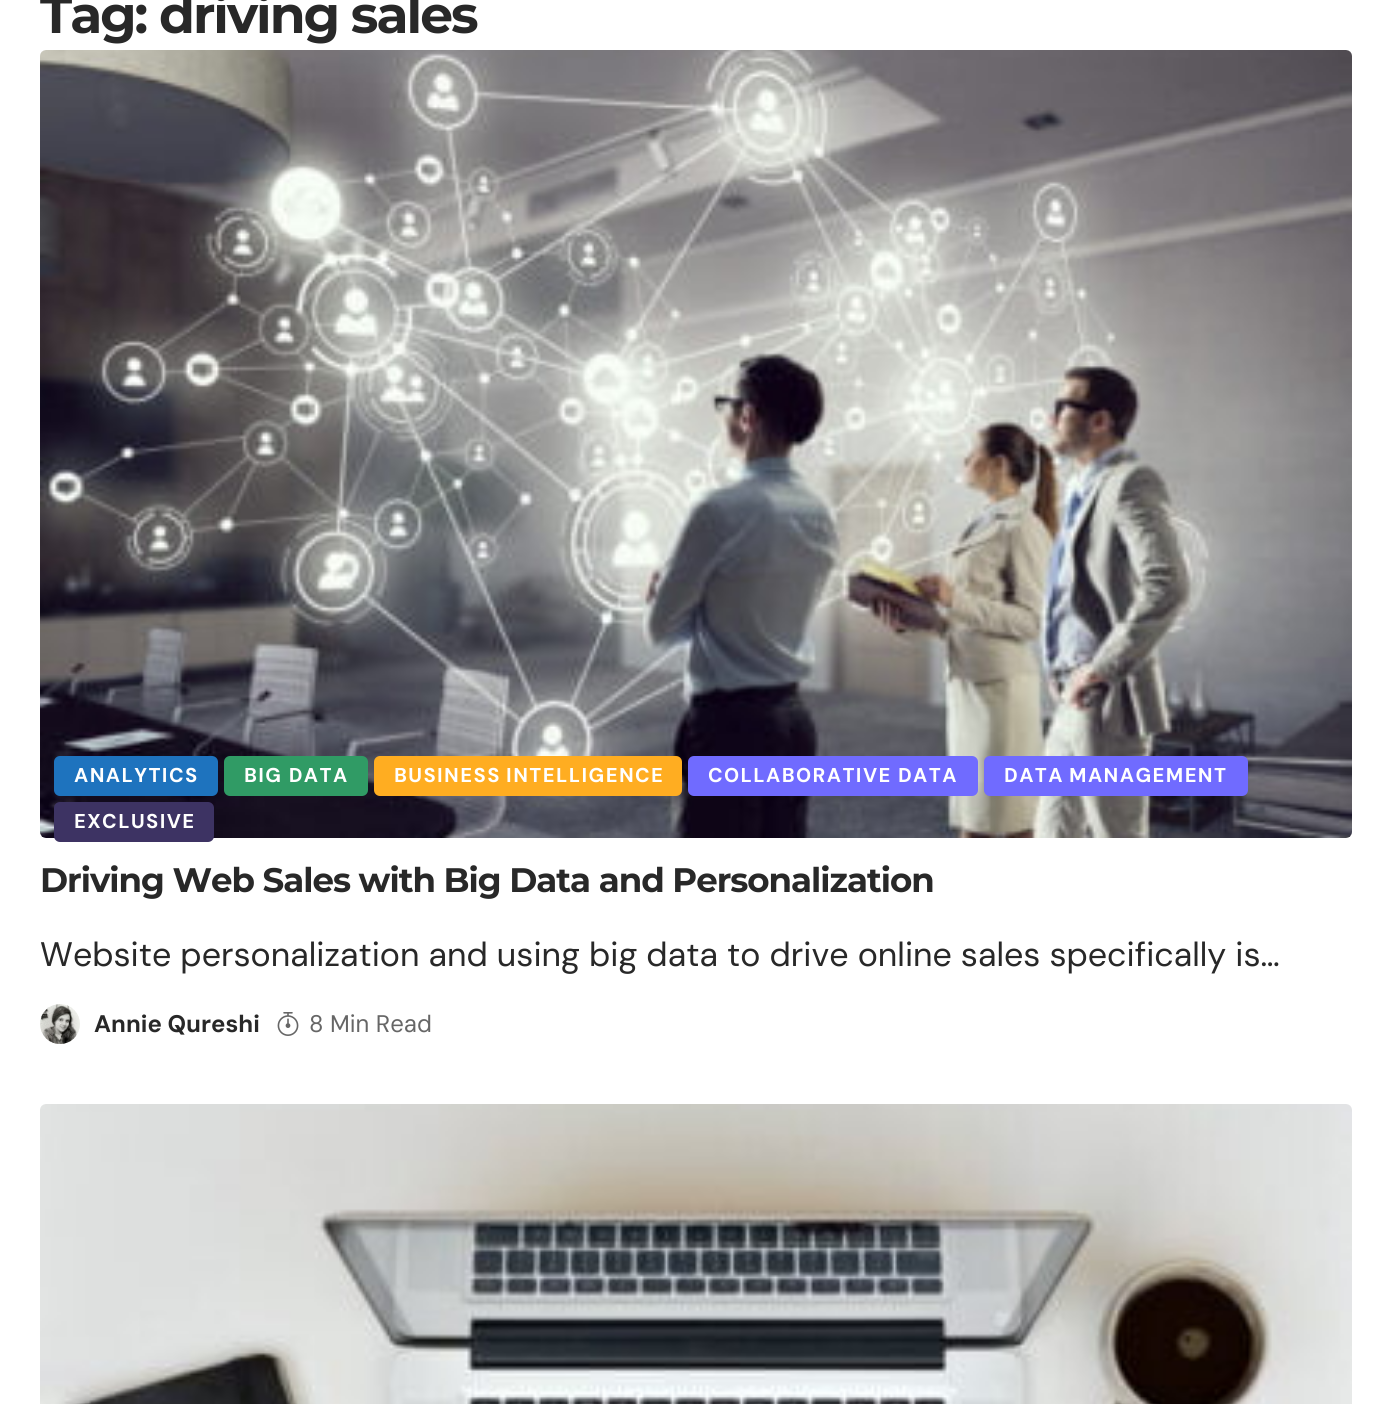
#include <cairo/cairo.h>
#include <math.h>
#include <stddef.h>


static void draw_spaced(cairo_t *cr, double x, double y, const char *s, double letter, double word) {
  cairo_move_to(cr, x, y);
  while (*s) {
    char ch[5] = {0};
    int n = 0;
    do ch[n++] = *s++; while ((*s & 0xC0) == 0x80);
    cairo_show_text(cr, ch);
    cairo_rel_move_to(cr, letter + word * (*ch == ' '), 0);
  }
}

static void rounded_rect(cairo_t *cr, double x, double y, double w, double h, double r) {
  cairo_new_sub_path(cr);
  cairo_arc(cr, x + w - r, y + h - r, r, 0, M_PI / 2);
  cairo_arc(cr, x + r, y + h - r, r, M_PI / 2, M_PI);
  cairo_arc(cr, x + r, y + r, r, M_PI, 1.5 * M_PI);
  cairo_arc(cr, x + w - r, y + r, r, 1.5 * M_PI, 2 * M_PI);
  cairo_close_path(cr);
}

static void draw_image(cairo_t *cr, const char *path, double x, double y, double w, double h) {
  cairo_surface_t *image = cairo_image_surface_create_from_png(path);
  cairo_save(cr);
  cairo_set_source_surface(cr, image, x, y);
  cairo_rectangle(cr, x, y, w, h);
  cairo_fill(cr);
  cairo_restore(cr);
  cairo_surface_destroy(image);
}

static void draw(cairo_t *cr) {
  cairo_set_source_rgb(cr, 1, 1, 1);
  cairo_paint(cr);
  draw_image(cr, "images/1.png", 40, 50, 1312, 788);
  cairo_set_source_rgb(cr, 30 / 255.0, 115 / 255.0, 190 / 255.0);
  rounded_rect(cr, 54, 756, 164, 40, 6);
  cairo_fill(cr);
  cairo_set_source_rgb(cr, 48 / 255.0, 155 / 255.0, 101 / 255.0);
  rounded_rect(cr, 224, 756, 144, 40, 6);
  cairo_fill(cr);
  cairo_set_source_rgb(cr, 1, 173 / 255.0, 33 / 255.0);
  rounded_rect(cr, 374, 756, 308, 40, 6);
  cairo_fill(cr);
  cairo_set_source_rgb(cr, 112 / 255.0, 107 / 255.0, 1);
  rounded_rect(cr, 688, 756, 290, 40, 6);
  cairo_fill(cr);
  rounded_rect(cr, 984, 756, 264, 40, 6);
  cairo_fill(cr);
  cairo_set_source_rgb(cr, 61 / 255.0, 51 / 255.0, 99 / 255.0);
  rounded_rect(cr, 54, 802, 160, 40, 6);
  cairo_fill(cr);
  draw_image(cr, "images/2.png", 40, 1004, 40, 40);
  draw_image(cr, "images/3.png", 277, 1012, 22, 24);
  draw_image(cr, "images/4.png", 40, 1104, 1312, 300);
  cairo_select_font_face(cr, "Montserrat", CAIRO_FONT_SLANT_NORMAL, CAIRO_FONT_WEIGHT_BOLD);
  cairo_set_font_size(cr, 52);
  cairo_set_source_rgb(cr, 40 / 255.0, 40 / 255.0, 40 / 255.0);
  draw_spaced(cr, 40, 33, "Tag: driving sales", -2, 0);
  cairo_select_font_face(cr, "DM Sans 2", CAIRO_FONT_SLANT_NORMAL, CAIRO_FONT_WEIGHT_BOLD);
  cairo_set_font_size(cr, 20);
  cairo_set_source_rgb(cr, 1, 1, 1);
  draw_spaced(cr, 74, 782, "ANALYTICS", 1.4, 0);
  draw_spaced(cr, 244, 782, "BIG DATA", 1.4, 0);
  draw_spaced(cr, 394, 782, "BUSINESS INTELLIGENCE", 1.4, -1);
  draw_spaced(cr, 708, 782, "COLLABORATIVE DATA", 1.4, 0);
  draw_spaced(cr, 1004, 782, "DATA MANAGEMENT", 1.4, -1);
  draw_spaced(cr, 74, 828, "EXCLUSIVE", 1.4, 0);
  cairo_select_font_face(cr, "Montserrat", CAIRO_FONT_SLANT_NORMAL, CAIRO_FONT_WEIGHT_BOLD);
  cairo_set_font_size(cr, 34);
  cairo_set_source_rgb(cr, 40 / 255.0, 40 / 255.0, 40 / 255.0);
  draw_spaced(cr, 40, 892, "Driving Web Sales with Big Data and Personalization", -1, 0);
  cairo_select_font_face(cr, "DM Sans", CAIRO_FONT_SLANT_NORMAL, CAIRO_FONT_WEIGHT_NORMAL);
  cairo_move_to(cr, 40, 966);
  cairo_show_text(cr, "Website personalization and using big data to drive online sales specifically is…");
  cairo_select_font_face(cr, "DM Sans", CAIRO_FONT_SLANT_NORMAL, CAIRO_FONT_WEIGHT_BOLD);
  cairo_set_font_size(cr, 24);
  cairo_move_to(cr, 94, 1032);
  cairo_show_text(cr, "Annie Qureshi");
  cairo_select_font_face(cr, "DM Sans 2", CAIRO_FONT_SLANT_NORMAL, CAIRO_FONT_WEIGHT_NORMAL);
  cairo_set_source_rgb(cr, 102 / 255.0, 102 / 255.0, 102 / 255.0);
  cairo_move_to(cr, 309, 1032);
  cairo_show_text(cr, "8 Min Read");
}

int main(void) {
  cairo_surface_t *surface = cairo_image_surface_create(CAIRO_FORMAT_RGB24, 1392, 1404);
  cairo_t *cr = cairo_create(surface);
  cairo_font_options_t *options = cairo_font_options_create();
  cairo_font_options_set_hint_metrics(options, CAIRO_HINT_METRICS_OFF);
  cairo_font_options_set_hint_style(options, CAIRO_HINT_STYLE_NONE);
  cairo_set_font_options(cr, options);
  cairo_set_miter_limit(cr, 4);
  draw(cr);
  cairo_surface_write_to_png(surface, "out.png");
  cairo_font_options_destroy(options);
  cairo_destroy(cr);
  cairo_surface_destroy(surface);
  return 0;
}
